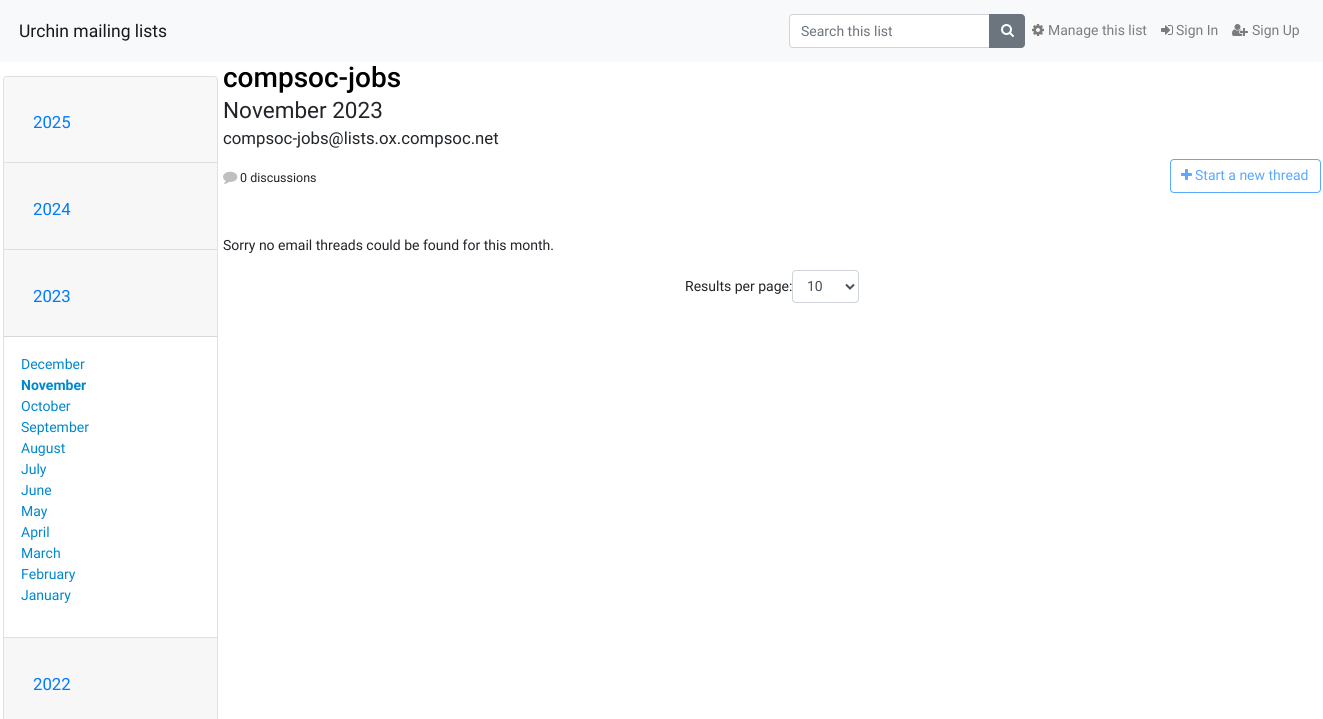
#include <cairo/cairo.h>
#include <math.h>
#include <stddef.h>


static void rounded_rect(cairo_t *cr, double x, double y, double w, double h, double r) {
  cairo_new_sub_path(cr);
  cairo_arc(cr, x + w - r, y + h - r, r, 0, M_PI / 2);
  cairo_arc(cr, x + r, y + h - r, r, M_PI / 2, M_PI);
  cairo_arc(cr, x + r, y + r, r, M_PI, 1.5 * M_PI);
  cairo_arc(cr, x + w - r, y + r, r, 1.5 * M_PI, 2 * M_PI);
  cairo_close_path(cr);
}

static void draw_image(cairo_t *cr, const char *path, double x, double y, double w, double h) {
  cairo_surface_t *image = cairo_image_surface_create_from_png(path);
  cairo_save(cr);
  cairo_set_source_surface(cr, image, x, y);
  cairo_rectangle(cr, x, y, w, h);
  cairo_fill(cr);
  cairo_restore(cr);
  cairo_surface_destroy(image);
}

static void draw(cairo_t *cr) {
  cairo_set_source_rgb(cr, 1, 1, 1);
  cairo_paint(cr);
  cairo_set_source_rgb(cr, 248 / 255.0, 249 / 255.0, 250 / 255.0);
  cairo_rectangle(cr, 0, 0, 1323, 62);
  cairo_fill(cr);
  cairo_set_source_rgb(cr, 1, 1, 1);
  cairo_new_path(cr);
  cairo_move_to(cr, 792.5, 15);
  cairo_line_to(cr, 989, 15);
  cairo_line_to(cr, 989, 47);
  cairo_line_to(cr, 792.5, 47);
  cairo_curve_to(cr, 791, 47, 790, 46, 790, 44.5);
  cairo_line_to(cr, 790, 17.5);
  cairo_curve_to(cr, 790, 16, 791, 15, 792.5, 15);
  cairo_close_path(cr);
  cairo_fill(cr);
  cairo_new_path(cr);
  cairo_move_to(cr, 793, 14.5);
  cairo_line_to(cr, 989.5, 14.5);
  cairo_line_to(cr, 989.5, 47.5);
  cairo_line_to(cr, 793, 47.5);
  cairo_curve_to(cr, 791, 47.5, 789.5, 46, 789.5, 44);
  cairo_line_to(cr, 789.5, 18);
  cairo_curve_to(cr, 789.5, 16, 791, 14.5, 793, 14.5);
  cairo_close_path(cr);
  cairo_set_source_rgb(cr, 206 / 255.0, 212 / 255.0, 218 / 255.0);
  cairo_set_line_width(cr, 1);
  cairo_stroke(cr);
  cairo_set_source_rgb(cr, 108 / 255.0, 117 / 255.0, 125 / 255.0);
  cairo_new_path(cr);
  cairo_move_to(cr, 989.5, 14.5);
  cairo_line_to(cr, 1021, 14.5);
  cairo_curve_to(cr, 1023, 14.5, 1024.5, 16, 1024.5, 18);
  cairo_line_to(cr, 1024.5, 44);
  cairo_curve_to(cr, 1024.5, 46, 1023, 47.5, 1021, 47.5);
  cairo_line_to(cr, 989.5, 47.5);
  cairo_close_path(cr);
  cairo_fill_preserve(cr);
  cairo_stroke(cr);
  draw_image(cr, "images/1.png", 1001, 24, 13, 13);
  draw_image(cr, "images/2.png", 1032, 24, 12, 12);
  draw_image(cr, "images/3.png", 1161, 25, 12, 10);
  draw_image(cr, "images/4.png", 1232, 24, 16, 12);
  cairo_set_source_rgb(cr, 223 / 255.0, 223 / 255.0, 223 / 255.0);
  cairo_set_fill_rule(cr, CAIRO_FILL_RULE_EVEN_ODD);
  cairo_new_path(cr);
  cairo_move_to(cr, 6, 76);
  cairo_line_to(cr, 214, 76);
  cairo_curve_to(cr, 216, 76, 218, 78, 218, 80);
  cairo_line_to(cr, 218, 162);
  cairo_line_to(cr, 3, 162);
  cairo_line_to(cr, 3, 80);
  cairo_curve_to(cr, 3, 78, 5, 76, 6, 76);
  cairo_close_path(cr);
  cairo_move_to(cr, 6, 77);
  cairo_line_to(cr, 214, 77);
  cairo_curve_to(cr, 216, 77, 217, 78, 217, 80);
  cairo_line_to(cr, 217, 162);
  cairo_line_to(cr, 4, 162);
  cairo_line_to(cr, 4, 80);
  cairo_curve_to(cr, 4, 78, 5, 77, 6, 77);
  cairo_close_path(cr);
  cairo_fill(cr);
  cairo_set_source_rgba(cr, 0, 0, 0, 0.03);
  cairo_rectangle(cr, 4, 77, 213, 85);
  cairo_fill(cr);
  cairo_set_source_rgb(cr, 223 / 255.0, 223 / 255.0, 223 / 255.0);
  cairo_set_fill_rule(cr, CAIRO_FILL_RULE_WINDING);
  cairo_new_path(cr);
  cairo_move_to(cr, 3, 162);
  cairo_line_to(cr, 218, 162);
  cairo_line_to(cr, 217, 163);
  cairo_line_to(cr, 4, 163);
  cairo_close_path(cr);
  cairo_fill(cr);
  cairo_set_source_rgba(cr, 0, 0, 0, 0.12);
  cairo_new_path(cr);
  cairo_move_to(cr, 218, 162);
  cairo_line_to(cr, 218, 249);
  cairo_line_to(cr, 217, 249);
  cairo_line_to(cr, 217, 163);
  cairo_close_path(cr);
  cairo_fill(cr);
  cairo_new_path(cr);
  cairo_move_to(cr, 3, 249);
  cairo_line_to(cr, 3, 162);
  cairo_line_to(cr, 4, 163);
  cairo_line_to(cr, 4, 249);
  cairo_close_path(cr);
  cairo_fill(cr);
  cairo_set_source_rgb(cr, 247 / 255.0, 247 / 255.0, 247 / 255.0);
  cairo_rectangle(cr, 4, 163, 213, 86);
  cairo_fill(cr);
  cairo_set_source_rgb(cr, 223 / 255.0, 223 / 255.0, 223 / 255.0);
  cairo_new_path(cr);
  cairo_move_to(cr, 3, 249);
  cairo_line_to(cr, 218, 249);
  cairo_line_to(cr, 217, 250);
  cairo_line_to(cr, 4, 250);
  cairo_close_path(cr);
  cairo_fill(cr);
  cairo_set_source_rgba(cr, 0, 0, 0, 0.12);
  cairo_new_path(cr);
  cairo_move_to(cr, 218, 249);
  cairo_line_to(cr, 218, 637);
  cairo_line_to(cr, 217, 637);
  cairo_line_to(cr, 217, 250);
  cairo_close_path(cr);
  cairo_fill(cr);
  cairo_new_path(cr);
  cairo_move_to(cr, 3, 637);
  cairo_line_to(cr, 3, 249);
  cairo_line_to(cr, 4, 250);
  cairo_line_to(cr, 4, 637);
  cairo_close_path(cr);
  cairo_fill(cr);
  cairo_set_source_rgb(cr, 247 / 255.0, 247 / 255.0, 247 / 255.0);
  cairo_rectangle(cr, 4, 250, 213, 86);
  cairo_fill(cr);
  cairo_set_source_rgb(cr, 216 / 255.0, 216 / 255.0, 216 / 255.0);
  cairo_rectangle(cr, 4, 336, 213, 1);
  cairo_fill(cr);
  cairo_set_source_rgb(cr, 223 / 255.0, 223 / 255.0, 223 / 255.0);
  cairo_new_path(cr);
  cairo_move_to(cr, 3, 637);
  cairo_line_to(cr, 218, 637);
  cairo_line_to(cr, 217, 638);
  cairo_line_to(cr, 4, 638);
  cairo_close_path(cr);
  cairo_fill(cr);
  cairo_set_source_rgba(cr, 0, 0, 0, 0.12);
  cairo_new_path(cr);
  cairo_move_to(cr, 218, 637);
  cairo_line_to(cr, 218, 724);
  cairo_line_to(cr, 217, 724);
  cairo_line_to(cr, 217, 638);
  cairo_close_path(cr);
  cairo_fill(cr);
  cairo_new_path(cr);
  cairo_move_to(cr, 3, 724);
  cairo_line_to(cr, 3, 637);
  cairo_line_to(cr, 4, 638);
  cairo_line_to(cr, 4, 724);
  cairo_close_path(cr);
  cairo_fill(cr);
  cairo_set_source_rgb(cr, 247 / 255.0, 247 / 255.0, 247 / 255.0);
  cairo_rectangle(cr, 4, 638, 213, 81);
  cairo_fill(cr);
  draw_image(cr, "images/5.png", 223, 171, 15, 13);
  rounded_rect(cr, 1170.5, 159.5, 150, 33, 3.5);
  cairo_set_source_rgb(cr, 89 / 255.0, 169 / 255.0, 1);
  cairo_stroke(cr);
  draw_image(cr, "images/6.png", 1181, 169, 11, 11);
  rounded_rect(cr, 792.5, 270.5, 66, 32, 3.5);
  cairo_set_source_rgb(cr, 206 / 255.0, 212 / 255.0, 218 / 255.0);
  cairo_stroke(cr);
  cairo_new_path(cr);
  cairo_move_to(cr, 846, 284.5);
  cairo_line_to(cr, 850, 288.5);
  cairo_line_to(cr, 854, 284.5);
  cairo_set_source_rgb(cr, 73 / 255.0, 80 / 255.0, 87 / 255.0);
  cairo_set_line_width(cr, 2);
  cairo_stroke(cr);
  cairo_select_font_face(cr, "Roboto", CAIRO_FONT_SLANT_NORMAL, CAIRO_FONT_WEIGHT_NORMAL);
  cairo_set_font_size(cr, 17.5);
  cairo_set_source_rgb(cr, 25 / 255.0, 25 / 255.0, 25 / 255.0);
  cairo_move_to(cr, 19, 37);
  cairo_show_text(cr, "Urchin mailing lists");
  cairo_set_font_size(cr, 14);
  cairo_set_source_rgb(cr, 108 / 255.0, 117 / 255.0, 125 / 255.0);
  cairo_move_to(cr, 801, 36);
  cairo_show_text(cr, "Search this list");
  cairo_set_source_rgb(cr, 124 / 255.0, 125 / 255.0, 125 / 255.0);
  cairo_move_to(cr, 1048, 35);
  cairo_show_text(cr, "Manage this list");
  cairo_move_to(cr, 1176, 35);
  cairo_show_text(cr, "Sign In");
  cairo_move_to(cr, 1252, 35);
  cairo_show_text(cr, "Sign Up");
  cairo_set_font_size(cr, 16.75);
  cairo_set_source_rgb(cr, 0, 123 / 255.0, 1);
  cairo_move_to(cr, 33, 128);
  cairo_show_text(cr, "2025");
  cairo_move_to(cr, 33, 215);
  cairo_show_text(cr, "2024");
  cairo_move_to(cr, 33, 302);
  cairo_show_text(cr, "2023");
  cairo_set_font_size(cr, 14);
  cairo_set_source_rgb(cr, 0, 136 / 255.0, 204 / 255.0);
  cairo_move_to(cr, 21, 369);
  cairo_show_text(cr, "December");
  cairo_select_font_face(cr, "Roboto", CAIRO_FONT_SLANT_NORMAL, CAIRO_FONT_WEIGHT_BOLD);
  cairo_move_to(cr, 21, 390);
  cairo_show_text(cr, "November");
  cairo_select_font_face(cr, "Roboto", CAIRO_FONT_SLANT_NORMAL, CAIRO_FONT_WEIGHT_NORMAL);
  cairo_move_to(cr, 21, 411);
  cairo_show_text(cr, "October");
  cairo_move_to(cr, 21, 432);
  cairo_show_text(cr, "September");
  cairo_move_to(cr, 21, 453);
  cairo_show_text(cr, "August");
  cairo_move_to(cr, 21, 474);
  cairo_show_text(cr, "July");
  cairo_move_to(cr, 21, 495);
  cairo_show_text(cr, "June");
  cairo_move_to(cr, 21, 516);
  cairo_show_text(cr, "May");
  cairo_move_to(cr, 21, 537);
  cairo_show_text(cr, "April");
  cairo_move_to(cr, 21, 558);
  cairo_show_text(cr, "March");
  cairo_move_to(cr, 21, 579);
  cairo_show_text(cr, "February");
  cairo_move_to(cr, 21, 600);
  cairo_show_text(cr, "January");
  cairo_set_font_size(cr, 16.75);
  cairo_set_source_rgb(cr, 0, 123 / 255.0, 1);
  cairo_move_to(cr, 33, 690);
  cairo_show_text(cr, "2022");
  cairo_select_font_face(cr, "Roboto Medium", CAIRO_FONT_SLANT_NORMAL, CAIRO_FONT_WEIGHT_NORMAL);
  cairo_set_font_size(cr, 28);
  cairo_set_source_rgb(cr, 0, 0, 0);
  cairo_move_to(cr, 223, 87);
  cairo_show_text(cr, "compsoc-jobs");
  cairo_select_font_face(cr, "Roboto", CAIRO_FONT_SLANT_NORMAL, CAIRO_FONT_WEIGHT_NORMAL);
  cairo_set_font_size(cr, 22.5);
  cairo_set_source_rgb(cr, 33 / 255.0, 37 / 255.0, 41 / 255.0);
  cairo_move_to(cr, 223, 118);
  cairo_show_text(cr, "November 2023");
  cairo_set_font_size(cr, 16.75);
  cairo_move_to(cr, 223, 144);
  cairo_show_text(cr, "compsoc-jobs@lists.ox.compsoc.net");
  cairo_set_font_size(cr, 12.5);
  cairo_move_to(cr, 240, 182);
  cairo_show_text(cr, "0 discussions");
  cairo_set_font_size(cr, 14);
  cairo_set_source_rgb(cr, 89 / 255.0, 169 / 255.0, 1);
  cairo_move_to(cr, 1195, 180);
  cairo_show_text(cr, "Start a new thread");
  cairo_set_source_rgb(cr, 33 / 255.0, 37 / 255.0, 41 / 255.0);
  cairo_move_to(cr, 223, 250);
  cairo_show_text(cr, "Sorry no email threads could be found for this month.");
  cairo_move_to(cr, 685, 291);
  cairo_show_text(cr, "Results per page:");
  cairo_set_source_rgb(cr, 73 / 255.0, 80 / 255.0, 87 / 255.0);
  cairo_move_to(cr, 807, 291);
  cairo_show_text(cr, "10");
}

int main(void) {
  cairo_surface_t *surface = cairo_image_surface_create(CAIRO_FORMAT_RGB24, 1323, 719);
  cairo_t *cr = cairo_create(surface);
  cairo_font_options_t *options = cairo_font_options_create();
  cairo_font_options_set_hint_metrics(options, CAIRO_HINT_METRICS_OFF);
  cairo_font_options_set_hint_style(options, CAIRO_HINT_STYLE_NONE);
  cairo_set_font_options(cr, options);
  cairo_set_miter_limit(cr, 4);
  draw(cr);
  cairo_surface_write_to_png(surface, "out.png");
  cairo_font_options_destroy(options);
  cairo_destroy(cr);
  cairo_surface_destroy(surface);
  return 0;
}
